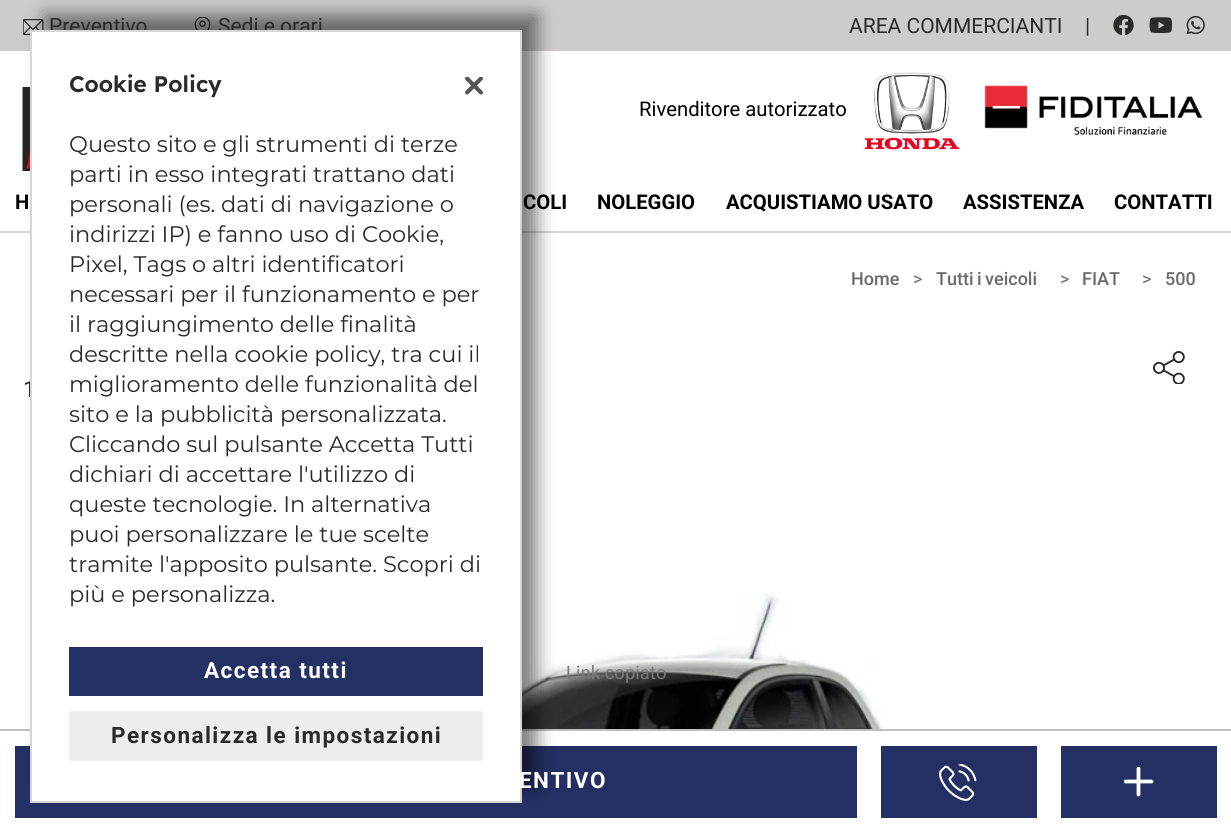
#include <cairo/cairo.h>
#include <math.h>
#include <stddef.h>


static void draw_spaced(cairo_t *cr, double x, double y, const char *s, double letter, double word) {
  cairo_move_to(cr, x, y);
  while (*s) {
    char ch[5] = {0};
    int n = 0;
    do ch[n++] = *s++; while ((*s & 0xC0) == 0x80);
    cairo_show_text(cr, ch);
    cairo_rel_move_to(cr, letter + word * (*ch == ' '), 0);
  }
}

static void rounded_rect(cairo_t *cr, double x, double y, double w, double h, double r) {
  cairo_new_sub_path(cr);
  cairo_arc(cr, x + w - r, y + h - r, r, 0, M_PI / 2);
  cairo_arc(cr, x + r, y + h - r, r, M_PI / 2, M_PI);
  cairo_arc(cr, x + r, y + r, r, M_PI, 1.5 * M_PI);
  cairo_arc(cr, x + w - r, y + r, r, 1.5 * M_PI, 2 * M_PI);
  cairo_close_path(cr);
}

static void draw_shadow(cairo_t *cr, double x, double y, double w, double h, double r, double blur, double alpha) {
  cairo_push_group_with_content(cr, CAIRO_CONTENT_ALPHA);
  cairo_set_operator(cr, CAIRO_OPERATOR_SOURCE);
  for (int i = 15; i >= -15 && fmin(w, h) + blur * i / 3 > 0; i -= 2) {
    double e = blur * i / 6;
    cairo_set_source_rgba(cr, 0, 0, 0, alpha * erfc((i - 1) / 8.5) / 2);
    rounded_rect(cr, x - e, y - e, w + 2 * e, h + 2 * e, fmax(0, fmin(r + e + blur * .6, fmin(w, h) / 2 + e)));
    cairo_fill(cr);
  }
  cairo_pattern_t *soft = cairo_pop_group(cr);
  cairo_mask(cr, soft);
  cairo_pattern_destroy(soft);
}

static void draw_image(cairo_t *cr, const char *path, double x, double y, double w, double h) {
  cairo_surface_t *image = cairo_image_surface_create_from_png(path);
  cairo_save(cr);
  cairo_set_source_surface(cr, image, x, y);
  cairo_rectangle(cr, x, y, w, h);
  cairo_fill(cr);
  cairo_restore(cr);
  cairo_surface_destroy(image);
}

static void draw(cairo_t *cr) {
  cairo_set_source_rgb(cr, 1, 1, 1);
  cairo_paint(cr);
  cairo_set_source_rgb(cr, 206 / 255.0, 203 / 255.0, 203 / 255.0);
  cairo_rectangle(cr, 0, 0, 1231, 51);
  cairo_fill(cr);
  draw_image(cr, "images/1.png", 23, 19, 21, 16);
  draw_image(cr, "images/2.png", 194, 17, 17, 13);
  draw_image(cr, "images/3.png", 1113, 15, 21, 21);
  draw_image(cr, "images/4.png", 1149, 17, 23, 16);
  draw_image(cr, "images/5.png", 1186, 15, 19, 20);
  draw_image(cr, "images/6.png", 22, 87, 8, 84);
  draw_image(cr, "images/7.png", 864, 72, 96, 78);
  draw_image(cr, "images/8.png", 984, 85, 219, 50);
  cairo_set_source_rgb(cr, 214 / 255.0, 214 / 255.0, 214 / 255.0);
  cairo_rectangle(cr, 0, 231, 1231, 2);
  cairo_fill(cr);
  draw_image(cr, "images/9.png", 1153, 351, 32, 33);
  draw_image(cr, "images/10.png", 522, 592, 410, 137);
  cairo_set_source_rgb(cr, 191 / 255.0, 191 / 255.0, 191 / 255.0);
  cairo_rectangle(cr, 0, 729, 1231, 2);
  cairo_fill(cr);
  cairo_set_source_rgb(cr, 36 / 255.0, 48 / 255.0, 99 / 255.0);
  cairo_rectangle(cr, 15, 746, 842, 72);
  cairo_fill(cr);
  cairo_set_source_rgb(cr, 0, 0, 0);
  draw_shadow(cr, 45, 15, 492, 773, 0, 9, 0.5);
  cairo_set_source_rgb(cr, 36 / 255.0, 48 / 255.0, 99 / 255.0);
  cairo_rectangle(cr, 881, 746, 156, 72);
  cairo_fill(cr);
  draw_image(cr, "images/12.png", 939, 764, 38, 37);
  cairo_rectangle(cr, 1061, 746, 156, 72);
  cairo_fill(cr);
  cairo_save(cr);
  cairo_rectangle(cr, 1124, 767, 30, 30);
  cairo_clip(cr);
  cairo_new_path(cr);
  cairo_move_to(cr, 1125.5, 781.5);
  cairo_line_to(cr, 1151.5, 781.5);
  cairo_move_to(cr, 1138.5, 768.5);
  cairo_line_to(cr, 1138.5, 794.5);
  cairo_set_source_rgb(cr, 1, 1, 1);
  cairo_set_line_width(cr, 3.8);
  cairo_set_line_cap(cr, CAIRO_LINE_CAP_ROUND);
  cairo_stroke(cr);
  cairo_restore(cr);
  cairo_select_font_face(cr, "Roboto", CAIRO_FONT_SLANT_NORMAL, CAIRO_FONT_WEIGHT_NORMAL);
  cairo_set_font_size(cr, 21);
  cairo_set_source_rgb(cr, 43 / 255.0, 41 / 255.0, 41 / 255.0);
  cairo_move_to(cr, 49, 33);
  cairo_show_text(cr, "Preventivo");
  cairo_move_to(cr, 218, 33);
  cairo_show_text(cr, "Sedi e orari");
  cairo_move_to(cr, 849, 33);
  cairo_show_text(cr, "AREA COMMERCIANTI");
  cairo_move_to(cr, 1085, 33);
  cairo_show_text(cr, "|");
  cairo_set_font_size(cr, 20.25);
  cairo_set_source_rgb(cr, 0, 0, 0);
  cairo_move_to(cr, 639, 116);
  cairo_show_text(cr, "Rivenditore autorizzato");
  cairo_select_font_face(cr, "Roboto", CAIRO_FONT_SLANT_NORMAL, CAIRO_FONT_WEIGHT_BOLD);
  cairo_move_to(cr, 15, 209);
  cairo_show_text(cr, "H");
  cairo_move_to(cr, 523, 209);
  cairo_show_text(cr, "COLI");
  cairo_move_to(cr, 597, 209);
  cairo_show_text(cr, "NOLEGGIO");
  cairo_move_to(cr, 726, 209);
  cairo_show_text(cr, "ACQUISTIAMO USATO");
  cairo_move_to(cr, 963, 209);
  cairo_show_text(cr, "ASSISTENZA");
  cairo_move_to(cr, 1114, 209);
  cairo_show_text(cr, "CONTATTI");
  cairo_select_font_face(cr, "Roboto Medium", CAIRO_FONT_SLANT_NORMAL, CAIRO_FONT_WEIGHT_NORMAL);
  cairo_set_font_size(cr, 18);
  cairo_set_source_rgb(cr, 107 / 255.0, 105 / 255.0, 105 / 255.0);
  cairo_move_to(cr, 851, 285);
  cairo_show_text(cr, "Home");
  cairo_select_font_face(cr, "Roboto", CAIRO_FONT_SLANT_NORMAL, CAIRO_FONT_WEIGHT_NORMAL);
  cairo_move_to(cr, 913, 285);
  cairo_show_text(cr, ">");
  cairo_select_font_face(cr, "Roboto Medium", CAIRO_FONT_SLANT_NORMAL, CAIRO_FONT_WEIGHT_NORMAL);
  draw_spaced(cr, 936, 285, "Tutti i veicoli", 0, -1);
  cairo_select_font_face(cr, "Roboto", CAIRO_FONT_SLANT_NORMAL, CAIRO_FONT_WEIGHT_NORMAL);
  cairo_move_to(cr, 1060, 285);
  cairo_show_text(cr, ">");
  cairo_select_font_face(cr, "Roboto Medium", CAIRO_FONT_SLANT_NORMAL, CAIRO_FONT_WEIGHT_NORMAL);
  cairo_move_to(cr, 1082, 285);
  cairo_show_text(cr, "FIAT");
  cairo_select_font_face(cr, "Roboto", CAIRO_FONT_SLANT_NORMAL, CAIRO_FONT_WEIGHT_NORMAL);
  cairo_move_to(cr, 1142, 285);
  cairo_show_text(cr, ">");
  cairo_select_font_face(cr, "Roboto Medium", CAIRO_FONT_SLANT_NORMAL, CAIRO_FONT_WEIGHT_NORMAL);
  cairo_move_to(cr, 1165, 285);
  cairo_show_text(cr, "500");
  cairo_select_font_face(cr, "Roboto", CAIRO_FONT_SLANT_NORMAL, CAIRO_FONT_WEIGHT_NORMAL);
  cairo_set_font_size(cr, 22.5);
  cairo_set_source_rgb(cr, 43 / 255.0, 41 / 255.0, 41 / 255.0);
  cairo_move_to(cr, 23, 397);
  cairo_show_text(cr, "1");
  cairo_set_font_size(cr, 18.5);
  cairo_set_source_rgb(cr, 122 / 255.0, 122 / 255.0, 120 / 255.0);
  cairo_move_to(cr, 566, 679);
  cairo_show_text(cr, "Link copiato");
  cairo_set_source_rgb(cr, 1, 1, 1);
  cairo_rectangle(cr, 31, 31, 490, 771);
  cairo_fill_preserve(cr);
  cairo_set_source_rgb(cr, 214 / 255.0, 214 / 255.0, 214 / 255.0);
  cairo_stroke(cr);
  cairo_select_font_face(cr, "Lexend SemiBold", CAIRO_FONT_SLANT_NORMAL, CAIRO_FONT_WEIGHT_NORMAL);
  cairo_set_font_size(cr, 22.5);
  cairo_set_source_rgb(cr, 43 / 255.0, 41 / 255.0, 41 / 255.0);
  cairo_move_to(cr, 69, 92);
  cairo_show_text(cr, "Cookie Policy");
  cairo_select_font_face(cr, "Montserrat", CAIRO_FONT_SLANT_NORMAL, CAIRO_FONT_WEIGHT_NORMAL);
  cairo_move_to(cr, 69, 152);
  cairo_show_text(cr, "Questo sito e gli strumenti di terze");
  cairo_move_to(cr, 69, 182);
  cairo_show_text(cr, "parti in esso integrati trattano dati");
  cairo_move_to(cr, 69, 212);
  cairo_show_text(cr, "personali (es. dati di navigazione o");
  cairo_move_to(cr, 69, 242);
  cairo_show_text(cr, "indirizzi IP) e fanno uso di Cookie,");
  cairo_move_to(cr, 69, 272);
  cairo_show_text(cr, "Pixel, Tags o altri identificatori");
  cairo_move_to(cr, 69, 302);
  cairo_show_text(cr, "necessari per il funzionamento e per");
  cairo_move_to(cr, 69, 332);
  cairo_show_text(cr, "il raggiungimento delle finalità");
  cairo_move_to(cr, 69, 362);
  cairo_show_text(cr, "descritte nella cookie policy, tra cui il");
  cairo_move_to(cr, 69, 392);
  cairo_show_text(cr, "miglioramento delle funzionalità del");
  cairo_move_to(cr, 69, 422);
  cairo_show_text(cr, "sito e la pubblicità personalizzata.");
  cairo_move_to(cr, 69, 452);
  cairo_show_text(cr, "Cliccando sul pulsante Accetta Tutti");
  cairo_move_to(cr, 69, 482);
  cairo_show_text(cr, "dichiari di accettare l'utilizzo di");
  cairo_move_to(cr, 69, 512);
  cairo_show_text(cr, "queste tecnologie. In alternativa");
  cairo_move_to(cr, 69, 542);
  cairo_show_text(cr, "puoi personalizzare le tue scelte");
  cairo_move_to(cr, 69, 572);
  cairo_show_text(cr, "tramite l'apposito pulsante. Scopri di");
  cairo_move_to(cr, 69, 602);
  cairo_show_text(cr, "più e personalizza.");
  draw_image(cr, "images/11.png", 465, 77, 18, 18);
  cairo_set_source_rgb(cr, 36 / 255.0, 48 / 255.0, 99 / 255.0);
  cairo_rectangle(cr, 69, 647, 414, 49);
  cairo_fill(cr);
  cairo_select_font_face(cr, "Roboto", CAIRO_FONT_SLANT_NORMAL, CAIRO_FONT_WEIGHT_BOLD);
  cairo_set_source_rgb(cr, 1, 1, 1);
  draw_spaced(cr, 204, 678, "Accetta tutti", 1.45, 0);
  cairo_set_source_rgb(cr, 238 / 255.0, 238 / 255.0, 238 / 255.0);
  cairo_rectangle(cr, 69, 711, 414, 50);
  cairo_fill(cr);
  cairo_set_source_rgb(cr, 43 / 255.0, 41 / 255.0, 41 / 255.0);
  draw_spaced(cr, 111, 743, "Personalizza le impostazioni", 1.45, 0);
  cairo_set_source_rgb(cr, 1, 1, 1);
  draw_spaced(cr, 519, 788, "ENTIVO", 1.45, 0);
}

int main(void) {
  cairo_surface_t *surface = cairo_image_surface_create(CAIRO_FORMAT_RGB24, 1231, 832);
  cairo_t *cr = cairo_create(surface);
  cairo_font_options_t *options = cairo_font_options_create();
  cairo_font_options_set_hint_metrics(options, CAIRO_HINT_METRICS_OFF);
  cairo_font_options_set_hint_style(options, CAIRO_HINT_STYLE_NONE);
  cairo_set_font_options(cr, options);
  cairo_set_miter_limit(cr, 4);
  draw(cr);
  cairo_surface_write_to_png(surface, "out.png");
  cairo_font_options_destroy(options);
  cairo_destroy(cr);
  cairo_surface_destroy(surface);
  return 0;
}
